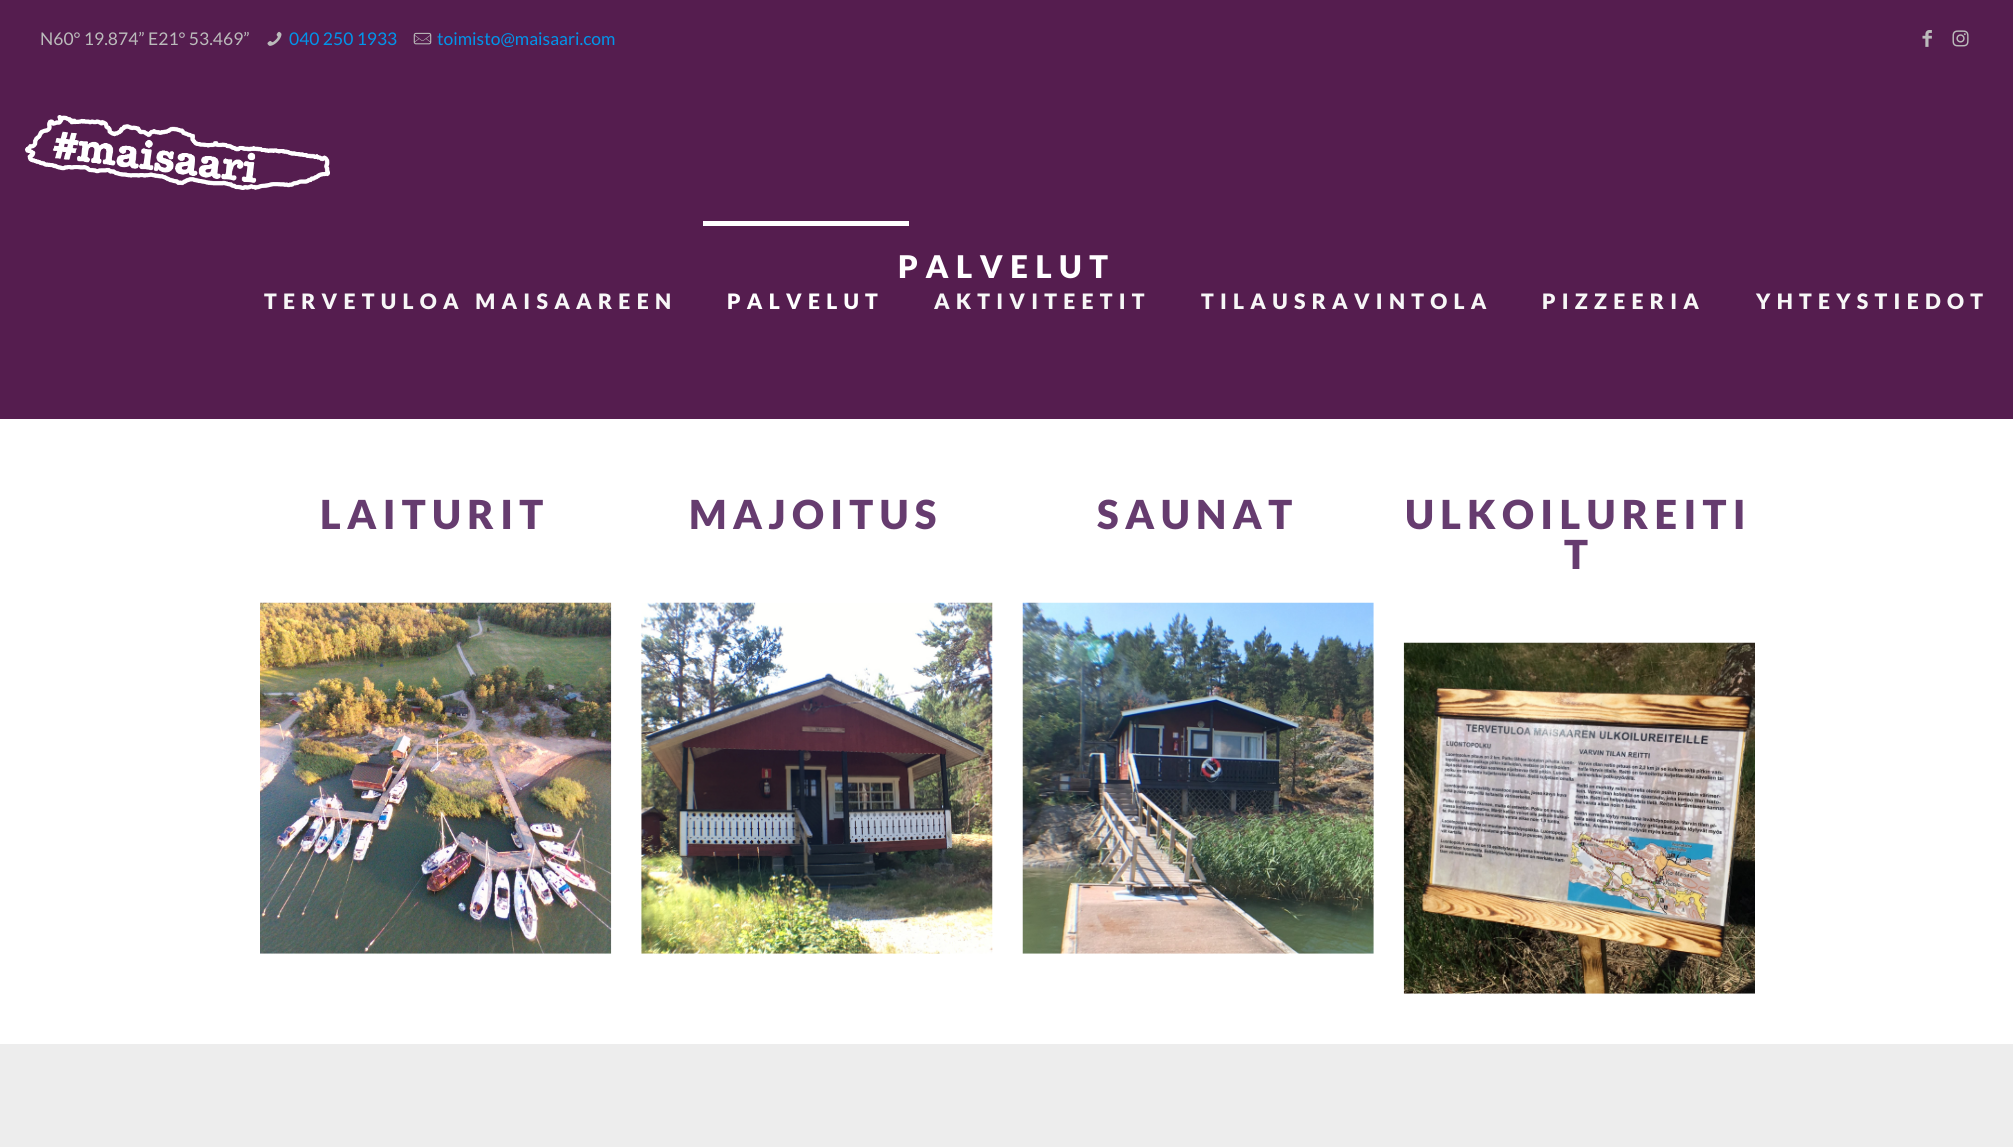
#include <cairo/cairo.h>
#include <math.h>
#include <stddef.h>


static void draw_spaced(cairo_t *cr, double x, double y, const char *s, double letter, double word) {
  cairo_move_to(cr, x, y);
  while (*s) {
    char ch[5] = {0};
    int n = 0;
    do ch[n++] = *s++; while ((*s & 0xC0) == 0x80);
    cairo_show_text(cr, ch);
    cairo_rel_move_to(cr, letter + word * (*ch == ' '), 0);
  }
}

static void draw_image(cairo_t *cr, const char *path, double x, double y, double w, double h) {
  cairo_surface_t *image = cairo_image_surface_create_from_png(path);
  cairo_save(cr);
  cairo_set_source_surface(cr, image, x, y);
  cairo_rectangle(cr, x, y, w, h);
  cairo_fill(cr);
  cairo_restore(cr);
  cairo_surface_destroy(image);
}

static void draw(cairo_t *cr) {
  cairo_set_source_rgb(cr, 1, 1, 1);
  cairo_paint(cr);
  cairo_set_source_rgb(cr, 85 / 255.0, 29 / 255.0, 79 / 255.0);
  cairo_rectangle(cr, 0, 0, 2013, 419);
  cairo_fill(cr);
  draw_image(cr, "images/1.png", 267, 31, 15, 15);
  draw_image(cr, "images/2.png", 413, 32, 19, 13);
  draw_image(cr, "images/3.png", 1922, 30, 10, 17);
  draw_image(cr, "images/4.png", 1952, 30, 17, 17);
  draw_image(cr, "images/5.png", 25, 115, 305, 75);
  cairo_set_source_rgb(cr, 1, 1, 1);
  cairo_rectangle(cr, 703, 221, 206, 5);
  cairo_fill(cr);
  draw_image(cr, "images/6.png", 260, 602, 352, 352);
  draw_image(cr, "images/7.png", 641, 602, 352, 352);
  draw_image(cr, "images/8.png", 1022, 602, 352, 352);
  draw_image(cr, "images/9.png", 1403, 642, 352, 352);
  cairo_set_source_rgb(cr, 237 / 255.0, 237 / 255.0, 237 / 255.0);
  cairo_rectangle(cr, 0, 1044, 2013, 103);
  cairo_fill(cr);
  cairo_select_font_face(cr, "Lato", CAIRO_FONT_SLANT_NORMAL, CAIRO_FONT_WEIGHT_NORMAL);
  cairo_set_font_size(cr, 17.5);
  cairo_set_source_rgb(cr, 187 / 255.0, 187 / 255.0, 187 / 255.0);
  cairo_move_to(cr, 40, 45);
  cairo_show_text(cr, "N60° 19.874” E21° 53.469”");
  cairo_set_source_rgb(cr, 0, 149 / 255.0, 235 / 255.0);
  cairo_move_to(cr, 289, 45);
  cairo_show_text(cr, "040 250 1933");
  cairo_move_to(cr, 437, 45);
  cairo_show_text(cr, "toimisto@maisaari.com");
  cairo_select_font_face(cr, "Lato Black", CAIRO_FONT_SLANT_NORMAL, CAIRO_FONT_WEIGHT_NORMAL);
  cairo_set_font_size(cr, 21.25);
  cairo_set_source_rgb(cr, 247 / 255.0, 247 / 255.0, 247 / 255.0);
  draw_spaced(cr, 264, 309, "TERVETULOA MAISAAREEN", 6.25, 0);
  cairo_set_source_rgb(cr, 1, 1, 1);
  draw_spaced(cr, 727, 309, "PALVELUT", 6.25, 0);
  cairo_set_source_rgb(cr, 247 / 255.0, 247 / 255.0, 247 / 255.0);
  draw_spaced(cr, 934, 309, "AKTIVITEETIT", 6.25, 0);
  draw_spaced(cr, 1201, 309, "TILAUSRAVINTOLA", 6.25, 0);
  draw_spaced(cr, 1542, 309, "PIZZEERIA", 6.25, 0);
  draw_spaced(cr, 1756, 309, "YHTEYSTIEDOT", 6.25, 0);
  cairo_set_font_size(cr, 31.25);
  cairo_set_source_rgb(cr, 1, 1, 1);
  draw_spaced(cr, 898, 278, "PALVELUT", 7.5, 0);
  cairo_set_font_size(cr, 40);
  cairo_set_source_rgb(cr, 102 / 255.0, 60 / 255.0, 111 / 255.0);
  draw_spaced(cr, 320, 529, "LAITURIT", 6.25, 0);
  draw_spaced(cr, 689, 529, "MAJOITUS", 6.25, 0);
  draw_spaced(cr, 1097, 529, "SAUNAT", 6.25, 0);
  draw_spaced(cr, 1405, 529, "ULKOILUREITI", 6.25, 0);
  draw_spaced(cr, 1564, 569, "T", 6.25, 0);
}

int main(void) {
  cairo_surface_t *surface = cairo_image_surface_create(CAIRO_FORMAT_RGB24, 2013, 1147);
  cairo_t *cr = cairo_create(surface);
  cairo_font_options_t *options = cairo_font_options_create();
  cairo_font_options_set_hint_metrics(options, CAIRO_HINT_METRICS_OFF);
  cairo_font_options_set_hint_style(options, CAIRO_HINT_STYLE_NONE);
  cairo_set_font_options(cr, options);
  cairo_set_miter_limit(cr, 4);
  draw(cr);
  cairo_surface_write_to_png(surface, "out.png");
  cairo_font_options_destroy(options);
  cairo_destroy(cr);
  cairo_surface_destroy(surface);
  return 0;
}
